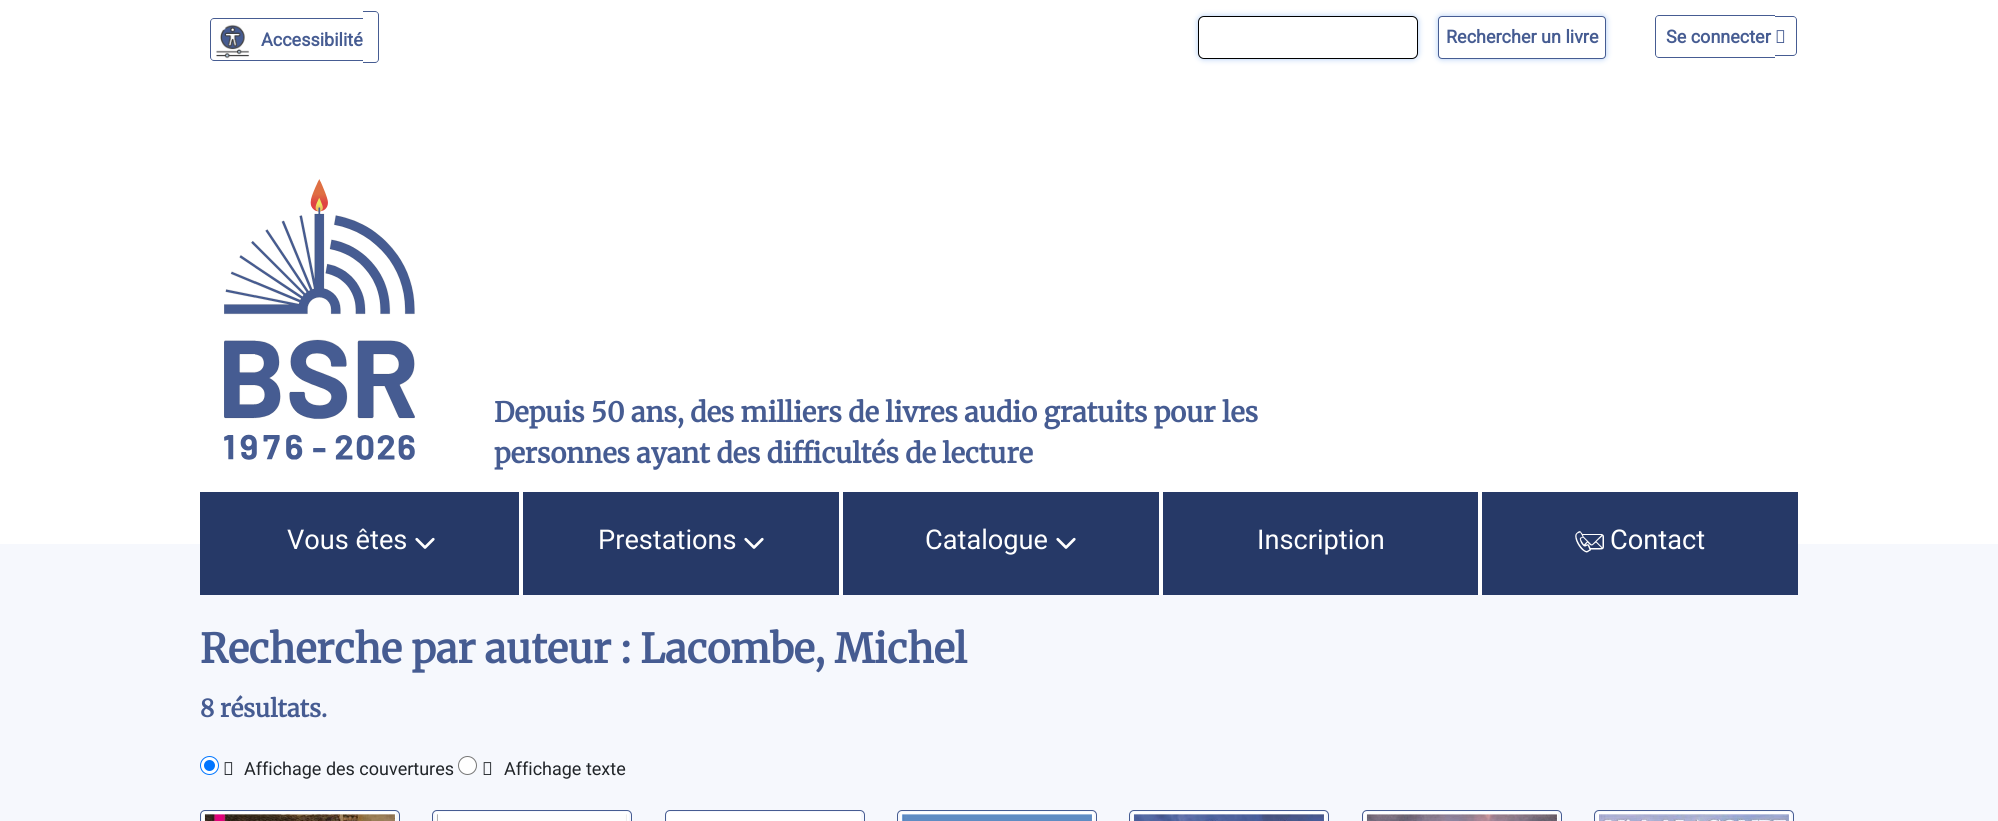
#include <cairo/cairo.h>
#include <math.h>
#include <stddef.h>


static void rounded_rect(cairo_t *cr, double x, double y, double w, double h, double r) {
  cairo_new_sub_path(cr);
  cairo_arc(cr, x + w - r, y + h - r, r, 0, M_PI / 2);
  cairo_arc(cr, x + r, y + h - r, r, M_PI / 2, M_PI);
  cairo_arc(cr, x + r, y + r, r, M_PI, 1.5 * M_PI);
  cairo_arc(cr, x + w - r, y + r, r, 1.5 * M_PI, 2 * M_PI);
  cairo_close_path(cr);
}

static void draw_shadow(cairo_t *cr, double x, double y, double w, double h, double r, double blur, double alpha) {
  cairo_push_group_with_content(cr, CAIRO_CONTENT_ALPHA);
  cairo_set_operator(cr, CAIRO_OPERATOR_SOURCE);
  for (int i = 15; i >= -15 && fmin(w, h) + blur * i / 3 > 0; i -= 2) {
    double e = blur * i / 6;
    cairo_set_source_rgba(cr, 0, 0, 0, alpha * erfc((i - 1) / 8.5) / 2);
    rounded_rect(cr, x - e, y - e, w + 2 * e, h + 2 * e, fmax(0, fmin(r + e + blur * .6, fmin(w, h) / 2 + e)));
    cairo_fill(cr);
  }
  cairo_pattern_t *soft = cairo_pop_group(cr);
  cairo_mask(cr, soft);
  cairo_pattern_destroy(soft);
}

static void draw_image(cairo_t *cr, const char *path, double x, double y, double w, double h) {
  cairo_surface_t *image = cairo_image_surface_create_from_png(path);
  cairo_save(cr);
  cairo_set_source_surface(cr, image, x, y);
  cairo_rectangle(cr, x, y, w, h);
  cairo_fill(cr);
  cairo_restore(cr);
  cairo_surface_destroy(image);
}

static void draw(cairo_t *cr) {
  cairo_set_source_rgb(cr, 246 / 255.0, 248 / 255.0, 253 / 255.0);
  cairo_paint(cr);
  cairo_set_source_rgb(cr, 1, 1, 1);
  cairo_rectangle(cr, 0, 0, 1998, 544);
  cairo_fill(cr);
  draw_image(cr, "images/1.png", 216, 24, 34, 35);
  cairo_set_source_rgb(cr, 70 / 255.0, 92 / 255.0, 146 / 255.0);
  cairo_set_fill_rule(cr, CAIRO_FILL_RULE_EVEN_ODD);
  cairo_new_path(cr);
  cairo_move_to(cr, 214, 18);
  cairo_line_to(cr, 363, 18);
  cairo_line_to(cr, 363, 61);
  cairo_line_to(cr, 214, 61);
  cairo_curve_to(cr, 212, 61, 210, 59, 210, 57);
  cairo_line_to(cr, 210, 22);
  cairo_curve_to(cr, 210, 20, 212, 18, 214, 18);
  cairo_close_path(cr);
  cairo_move_to(cr, 214, 19);
  cairo_line_to(cr, 363, 19);
  cairo_line_to(cr, 363, 60);
  cairo_line_to(cr, 214, 60);
  cairo_curve_to(cr, 212, 60, 211, 59, 211, 57);
  cairo_line_to(cr, 211, 22);
  cairo_curve_to(cr, 211, 20, 212, 19, 214, 19);
  cairo_close_path(cr);
  cairo_fill(cr);
  cairo_new_path(cr);
  cairo_move_to(cr, 363, 11);
  cairo_line_to(cr, 375, 11);
  cairo_curve_to(cr, 377, 11, 379, 13, 379, 15);
  cairo_line_to(cr, 379, 59);
  cairo_curve_to(cr, 379, 61, 377, 63, 375, 63);
  cairo_line_to(cr, 363, 63);
  cairo_close_path(cr);
  cairo_move_to(cr, 363, 12);
  cairo_line_to(cr, 375, 12);
  cairo_curve_to(cr, 377, 12, 378, 13, 378, 15);
  cairo_line_to(cr, 378, 59);
  cairo_curve_to(cr, 378, 61, 377, 62, 375, 62);
  cairo_line_to(cr, 363, 62);
  cairo_close_path(cr);
  cairo_fill(cr);
  cairo_set_source_rgb(cr, 171 / 255.0, 202 / 255.0, 245 / 255.0);
  draw_shadow(cr, 1198, 16, 220, 43, 6, 3, 1);
  cairo_set_source_rgb(cr, 1, 1, 1);
  rounded_rect(cr, 1198.5, 16.5, 219, 42, 5.5);
  cairo_fill_preserve(cr);
  cairo_set_source_rgb(cr, 0, 0, 0);
  cairo_set_line_width(cr, 1);
  cairo_stroke(cr);
  cairo_set_source_rgb(cr, 171 / 255.0, 202 / 255.0, 245 / 255.0);
  draw_shadow(cr, 1438, 16, 168, 43, 4, 3, 1);
  cairo_set_source_rgb(cr, 1, 1, 1);
  rounded_rect(cr, 1438.5, 16.5, 167, 42, 3.5);
  cairo_fill_preserve(cr);
  cairo_set_source_rgb(cr, 70 / 255.0, 92 / 255.0, 146 / 255.0);
  cairo_stroke(cr);
  cairo_new_path(cr);
  cairo_move_to(cr, 1659, 15);
  cairo_line_to(cr, 1775, 15);
  cairo_line_to(cr, 1775, 58);
  cairo_line_to(cr, 1659, 58);
  cairo_curve_to(cr, 1657, 58, 1655, 56, 1655, 54);
  cairo_line_to(cr, 1655, 19);
  cairo_curve_to(cr, 1655, 17, 1657, 15, 1659, 15);
  cairo_close_path(cr);
  cairo_move_to(cr, 1659, 16);
  cairo_line_to(cr, 1775, 16);
  cairo_line_to(cr, 1775, 57);
  cairo_line_to(cr, 1659, 57);
  cairo_curve_to(cr, 1657, 57, 1656, 56, 1656, 54);
  cairo_line_to(cr, 1656, 19);
  cairo_curve_to(cr, 1656, 17, 1657, 16, 1659, 16);
  cairo_close_path(cr);
  cairo_fill(cr);
  cairo_new_path(cr);
  cairo_move_to(cr, 1775, 16);
  cairo_line_to(cr, 1793, 16);
  cairo_curve_to(cr, 1795, 16, 1797, 18, 1797, 20);
  cairo_line_to(cr, 1797, 52);
  cairo_curve_to(cr, 1797, 54, 1795, 56, 1793, 56);
  cairo_line_to(cr, 1775, 56);
  cairo_close_path(cr);
  cairo_move_to(cr, 1775, 17);
  cairo_line_to(cr, 1793, 17);
  cairo_curve_to(cr, 1795, 17, 1796, 18, 1796, 20);
  cairo_line_to(cr, 1796, 52);
  cairo_curve_to(cr, 1796, 54, 1795, 55, 1793, 55);
  cairo_line_to(cr, 1775, 55);
  cairo_close_path(cr);
  cairo_fill(cr);
  draw_image(cr, "images/2.png", 1776, 30, 9, 13);
  draw_image(cr, "images/3.png", 224, 179, 191, 281);
  cairo_set_source_rgb(cr, 38 / 255.0, 57 / 255.0, 103 / 255.0);
  cairo_rectangle(cr, 200, 492, 319, 103);
  cairo_fill(cr);
  draw_image(cr, "images/4.png", 415, 537, 20, 12);
  cairo_rectangle(cr, 523, 492, 316, 103);
  cairo_fill(cr);
  cairo_set_source_rgb(cr, 1, 1, 1);
  cairo_rectangle(cr, 519, 544, 4, 51);
  cairo_fill(cr);
  draw_image(cr, "images/4.png", 744, 537, 20, 12);
  cairo_set_source_rgb(cr, 38 / 255.0, 57 / 255.0, 103 / 255.0);
  cairo_rectangle(cr, 843, 492, 316, 103);
  cairo_fill(cr);
  cairo_set_source_rgb(cr, 1, 1, 1);
  cairo_rectangle(cr, 839, 544, 4, 51);
  cairo_fill(cr);
  draw_image(cr, "images/4.png", 1056, 537, 20, 12);
  cairo_set_source_rgb(cr, 38 / 255.0, 57 / 255.0, 103 / 255.0);
  cairo_rectangle(cr, 1163, 492, 315, 103);
  cairo_fill(cr);
  cairo_set_source_rgb(cr, 1, 1, 1);
  cairo_rectangle(cr, 1159, 544, 4, 51);
  cairo_fill(cr);
  cairo_set_source_rgb(cr, 38 / 255.0, 57 / 255.0, 103 / 255.0);
  cairo_rectangle(cr, 1482, 492, 316, 103);
  cairo_fill(cr);
  cairo_set_source_rgb(cr, 1, 1, 1);
  cairo_rectangle(cr, 1478, 544, 4, 51);
  cairo_fill(cr);
  cairo_save(cr);
  cairo_set_fill_rule(cr, CAIRO_FILL_RULE_WINDING);
  cairo_rectangle(cr, 1575, 531, 29, 22);
  cairo_clip(cr);
  cairo_set_fill_rule(cr, CAIRO_FILL_RULE_EVEN_ODD);
  cairo_new_path(cr);
  cairo_move_to(cr, 1581, 532);
  cairo_curve_to(cr, 1580, 529.5, 1576, 533, 1575.5, 534.5);
  cairo_curve_to(cr, 1574, 539.5, 1579.5, 548.5, 1583.5, 551);
  cairo_curve_to(cr, 1585, 552, 1585, 552, 1586.5, 552.5);
  cairo_curve_to(cr, 1587.5, 552.5, 1589, 551.5, 1589.5, 551);
  cairo_curve_to(cr, 1590, 551, 1591, 550.5, 1591, 549.5);
  cairo_line_to(cr, 1600, 549.5);
  cairo_curve_to(cr, 1604.5, 549.5, 1604, 548, 1604, 543.5);
  cairo_curve_to(cr, 1604, 541.5, 1604.5, 536.5, 1603.5, 535);
  cairo_line_to(cr, 1602, 534);
  cairo_line_to(cr, 1582.5, 534);
  cairo_close_path(cr);
  cairo_move_to(cr, 1580, 532.5);
  cairo_curve_to(cr, 1580.5, 532, 1581, 534.5, 1581.5, 534.5);
  cairo_line_to(cr, 1582.5, 536.5);
  cairo_curve_to(cr, 1582, 538, 1579, 536.5, 1580, 540);
  cairo_curve_to(cr, 1580.5, 542, 1581.5, 544, 1583, 545.5);
  cairo_curve_to(cr, 1584, 546.5, 1585, 547, 1586.5, 546);
  cairo_curve_to(cr, 1587.5, 545.5, 1587.5, 545, 1588, 546);
  cairo_line_to(cr, 1589.5, 549.5);
  cairo_line_to(cr, 1587, 551);
  cairo_curve_to(cr, 1582.5, 551.5, 1573.5, 536.5, 1577.5, 533.5);
  cairo_close_path(cr);
  cairo_move_to(cr, 1601.5, 535);
  cairo_line_to(cr, 1592.5, 544);
  cairo_curve_to(cr, 1592, 544.5, 1591.5, 544.5, 1591, 544);
  cairo_line_to(cr, 1583.5, 536.5);
  cairo_line_to(cr, 1583, 535);
  cairo_close_path(cr);
  cairo_move_to(cr, 1602.5, 536);
  cairo_line_to(cr, 1602.5, 547.5);
  cairo_line_to(cr, 1596.5, 541.5);
  cairo_close_path(cr);
  cairo_move_to(cr, 1583, 537.5);
  cairo_line_to(cr, 1587, 541.5);
  cairo_line_to(cr, 1584, 544.5);
  cairo_curve_to(cr, 1583.5, 544, 1580, 539, 1581, 538.5);
  cairo_close_path(cr);
  cairo_move_to(cr, 1596, 542.5);
  cairo_line_to(cr, 1601.5, 548);
  cairo_line_to(cr, 1590.5, 548);
  cairo_curve_to(cr, 1589, 545, 1589, 543, 1585.5, 545);
  cairo_line_to(cr, 1587.5, 542.5);
  cairo_curve_to(cr, 1590, 545, 1591.5, 547, 1594, 544);
  cairo_close_path(cr);
  cairo_fill(cr);
  cairo_restore(cr);
  cairo_arc(cr, 209.5, 765.5, 9, 0, 2 * M_PI);
  cairo_fill_preserve(cr);
  cairo_set_source_rgb(cr, 0, 117 / 255.0, 1);
  cairo_stroke(cr);
  cairo_arc(cr, 209.5, 765.5, 5.5, 0, 2 * M_PI);
  cairo_fill(cr);
  draw_image(cr, "images/5.png", 224, 762, 9, 13);
  cairo_set_source_rgb(cr, 1, 1, 1);
  cairo_arc(cr, 467.5, 765.5, 9, 0, 2 * M_PI);
  cairo_fill_preserve(cr);
  cairo_set_source_rgb(cr, 118 / 255.0, 118 / 255.0, 118 / 255.0);
  cairo_stroke(cr);
  draw_image(cr, "images/5.png", 483, 762, 9, 13);
  rounded_rect(cr, 200.5, 810.5, 199, 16, 4.5);
  cairo_set_source_rgb(cr, 70 / 255.0, 92 / 255.0, 146 / 255.0);
  cairo_stroke(cr);
  cairo_set_source_rgba(cr, 1, 1, 1, 0.99);
  cairo_rectangle(cr, 202, 812, 194, 9);
  cairo_fill(cr);
  draw_image(cr, "images/6.png", 204, 814, 191, 7);
  rounded_rect(cr, 432.5, 810.5, 199, 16, 4.5);
  cairo_set_source_rgb(cr, 70 / 255.0, 92 / 255.0, 146 / 255.0);
  cairo_stroke(cr);
  cairo_set_source_rgb(cr, 1, 1, 1);
  cairo_rectangle(cr, 435, 812, 194, 9);
  cairo_fill(cr);
  draw_image(cr, "images/7.png", 436, 814, 191, 7);
  rounded_rect(cr, 665.5, 810.5, 199, 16, 4.5);
  cairo_set_source_rgb(cr, 70 / 255.0, 92 / 255.0, 146 / 255.0);
  cairo_stroke(cr);
  cairo_set_source_rgba(cr, 1, 1, 1, 0.99);
  cairo_rectangle(cr, 667, 812, 194, 9);
  cairo_fill(cr);
  rounded_rect(cr, 897.5, 810.5, 199, 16, 4.5);
  cairo_set_source_rgb(cr, 70 / 255.0, 92 / 255.0, 146 / 255.0);
  cairo_stroke(cr);
  cairo_set_source_rgb(cr, 1, 1, 1);
  cairo_rectangle(cr, 900, 812, 194, 9);
  cairo_fill(cr);
  draw_image(cr, "images/8.png", 901, 814, 191, 7);
  rounded_rect(cr, 1129.5, 810.5, 199, 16, 4.5);
  cairo_set_source_rgb(cr, 70 / 255.0, 92 / 255.0, 146 / 255.0);
  cairo_stroke(cr);
  cairo_set_source_rgb(cr, 1, 1, 1);
  cairo_rectangle(cr, 1132, 812, 194, 9);
  cairo_fill(cr);
  draw_image(cr, "images/9.png", 1133, 814, 191, 7);
  rounded_rect(cr, 1362.5, 810.5, 199, 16, 4.5);
  cairo_set_source_rgb(cr, 70 / 255.0, 92 / 255.0, 146 / 255.0);
  cairo_stroke(cr);
  cairo_set_source_rgba(cr, 1, 1, 1, 0.99);
  cairo_rectangle(cr, 1364, 812, 194, 9);
  cairo_fill(cr);
  draw_image(cr, "images/10.png", 1366, 814, 191, 7);
  rounded_rect(cr, 1594.5, 810.5, 199, 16, 4.5);
  cairo_set_source_rgb(cr, 70 / 255.0, 92 / 255.0, 146 / 255.0);
  cairo_stroke(cr);
  cairo_set_source_rgb(cr, 1, 1, 1);
  cairo_rectangle(cr, 1597, 812, 194, 9);
  cairo_fill(cr);
  draw_image(cr, "images/11.png", 1599, 814, 190, 7);
  cairo_select_font_face(cr, "Roboto", CAIRO_FONT_SLANT_NORMAL, CAIRO_FONT_WEIGHT_BOLD);
  cairo_set_font_size(cr, 18);
  cairo_set_source_rgb(cr, 70 / 255.0, 92 / 255.0, 146 / 255.0);
  cairo_move_to(cr, 261, 46);
  cairo_show_text(cr, "Accessibilité");
  cairo_move_to(cr, 1446, 43);
  cairo_show_text(cr, "Rechercher un livre");
  cairo_move_to(cr, 1666, 43);
  cairo_show_text(cr, "Se connecter");
  cairo_select_font_face(cr, "Merriweather", CAIRO_FONT_SLANT_NORMAL, CAIRO_FONT_WEIGHT_BOLD);
  cairo_set_font_size(cr, 27.2);
  cairo_move_to(cr, 494, 422);
  cairo_show_text(cr, "Depuis 50 ans, des milliers de livres audio gratuits pour les");
  cairo_move_to(cr, 494, 463);
  cairo_show_text(cr, "personnes ayant des difficultés de lecture");
  cairo_select_font_face(cr, "Roboto", CAIRO_FONT_SLANT_NORMAL, CAIRO_FONT_WEIGHT_NORMAL);
  cairo_set_source_rgb(cr, 1, 1, 1);
  cairo_move_to(cr, 287, 549);
  cairo_show_text(cr, "Vous êtes");
  cairo_move_to(cr, 598, 549);
  cairo_show_text(cr, "Prestations");
  cairo_move_to(cr, 925, 549);
  cairo_show_text(cr, "Catalogue");
  cairo_move_to(cr, 1257, 549);
  cairo_show_text(cr, "Inscription");
  cairo_move_to(cr, 1610, 549);
  cairo_show_text(cr, "Contact");
  cairo_select_font_face(cr, "Merriweather", CAIRO_FONT_SLANT_NORMAL, CAIRO_FONT_WEIGHT_BOLD);
  cairo_set_font_size(cr, 40);
  cairo_set_source_rgb(cr, 70 / 255.0, 92 / 255.0, 146 / 255.0);
  cairo_move_to(cr, 200, 663);
  cairo_show_text(cr, "Recherche par auteur : Lacombe, Michel");
  cairo_set_font_size(cr, 24);
  cairo_move_to(cr, 200, 717);
  cairo_show_text(cr, "8 résultats.");
  cairo_select_font_face(cr, "Roboto", CAIRO_FONT_SLANT_NORMAL, CAIRO_FONT_WEIGHT_NORMAL);
  cairo_set_font_size(cr, 18);
  cairo_set_source_rgb(cr, 33 / 255.0, 37 / 255.0, 41 / 255.0);
  cairo_move_to(cr, 244, 775);
  cairo_show_text(cr, "Affichage des couvertures");
  cairo_move_to(cr, 504, 775);
  cairo_show_text(cr, "Affichage texte");
}

int main(void) {
  cairo_surface_t *surface = cairo_image_surface_create(CAIRO_FORMAT_RGB24, 1998, 821);
  cairo_t *cr = cairo_create(surface);
  cairo_font_options_t *options = cairo_font_options_create();
  cairo_font_options_set_hint_metrics(options, CAIRO_HINT_METRICS_OFF);
  cairo_font_options_set_hint_style(options, CAIRO_HINT_STYLE_NONE);
  cairo_set_font_options(cr, options);
  cairo_set_miter_limit(cr, 4);
  draw(cr);
  cairo_surface_write_to_png(surface, "out.png");
  cairo_font_options_destroy(options);
  cairo_destroy(cr);
  cairo_surface_destroy(surface);
  return 0;
}
